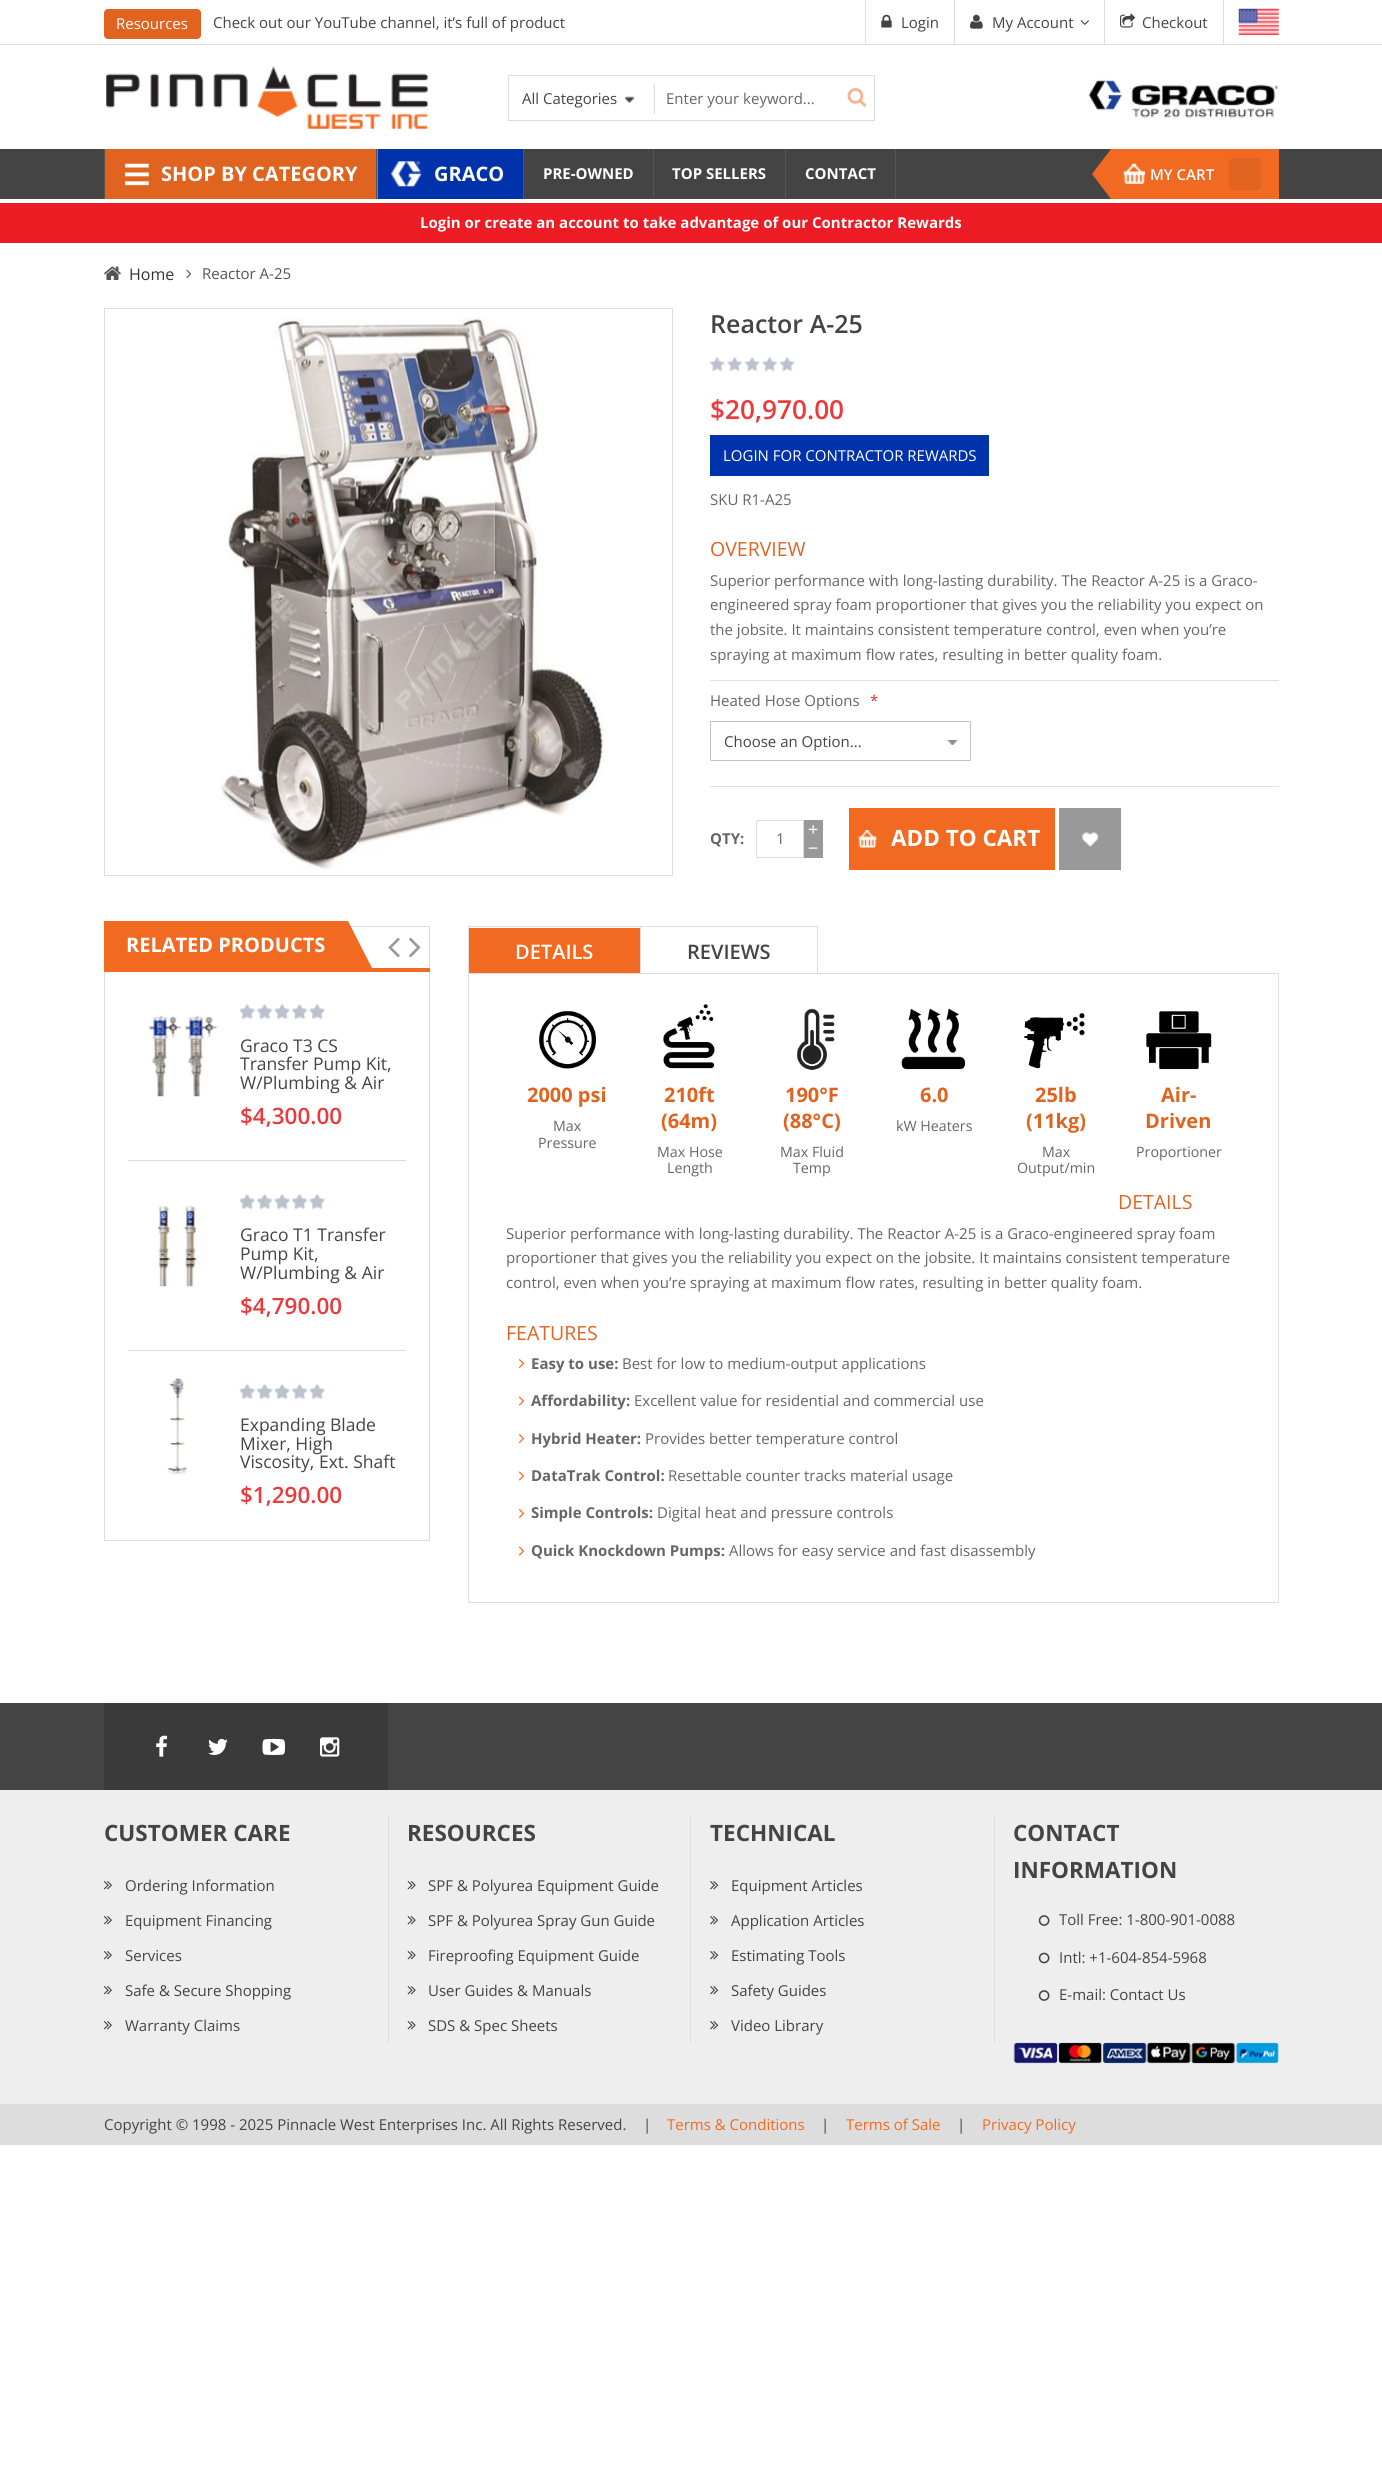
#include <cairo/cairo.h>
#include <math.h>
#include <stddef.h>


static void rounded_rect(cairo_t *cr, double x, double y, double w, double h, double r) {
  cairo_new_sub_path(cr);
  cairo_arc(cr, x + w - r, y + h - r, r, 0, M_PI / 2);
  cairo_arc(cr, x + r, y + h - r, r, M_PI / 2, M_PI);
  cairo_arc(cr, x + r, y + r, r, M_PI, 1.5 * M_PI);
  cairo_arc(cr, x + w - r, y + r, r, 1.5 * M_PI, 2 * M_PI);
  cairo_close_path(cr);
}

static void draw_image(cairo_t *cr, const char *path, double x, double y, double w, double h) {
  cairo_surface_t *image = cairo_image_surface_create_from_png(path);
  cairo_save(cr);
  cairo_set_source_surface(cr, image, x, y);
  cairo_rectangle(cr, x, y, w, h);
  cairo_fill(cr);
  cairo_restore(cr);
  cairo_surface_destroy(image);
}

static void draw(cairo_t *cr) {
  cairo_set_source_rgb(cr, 1, 1, 1);
  cairo_paint(cr);
  cairo_set_source_rgb(cr, 221 / 255.0, 221 / 255.0, 221 / 255.0);
  cairo_rectangle(cr, 0, 44, 1382, 1);
  cairo_fill(cr);
  cairo_set_source_rgb(cr, 224 / 255.0, 99 / 255.0, 32 / 255.0);
  rounded_rect(cr, 104, 9, 97, 30, 4);
  cairo_fill(cr);
  cairo_set_source_rgb(cr, 221 / 255.0, 221 / 255.0, 221 / 255.0);
  cairo_rectangle(cr, 865, 0, 1, 45);
  cairo_fill(cr);
  draw_image(cr, "images/1.png", 881, 14, 11, 14);
  cairo_rectangle(cr, 954, 0, 1, 45);
  cairo_fill(cr);
  draw_image(cr, "images/2.png", 970, 14, 13, 15);
  draw_image(cr, "images/3.png", 1080, 20, 9, 5);
  cairo_rectangle(cr, 1104, 0, 1, 45);
  cairo_fill(cr);
  draw_image(cr, "images/4.png", 1120, 13, 15, 15);
  cairo_rectangle(cr, 1223, 0, 1, 45);
  cairo_fill(cr);
  draw_image(cr, "images/5.png", 1238, 8, 41, 27);
  draw_image(cr, "images/6.png", 106, 66, 322, 63);
  cairo_rectangle(cr, 508.5, 75.5, 366, 45);
  cairo_set_line_width(cr, 1);
  cairo_stroke(cr);
  draw_image(cr, "images/7.png", 624, 83, 31, 31);
  draw_image(cr, "images/8.png", 847, 88, 19, 19);
  draw_image(cr, "images/9.png", 1088, 79, 191, 39);
  cairo_set_source_rgb(cr, 68 / 255.0, 68 / 255.0, 68 / 255.0);
  cairo_rectangle(cr, 0, 149, 1382, 50);
  cairo_fill(cr);
  cairo_set_source_rgb(cr, 224 / 255.0, 99 / 255.0, 32 / 255.0);
  cairo_rectangle(cr, 105, 149, 273, 50);
  cairo_fill(cr);
  draw_image(cr, "images/10.png", 124, 163, 25, 23);
  cairo_set_source_rgb(cr, 85 / 255.0, 85 / 255.0, 85 / 255.0);
  cairo_rectangle(cr, 376, 149, 1, 50);
  cairo_fill(cr);
  cairo_rectangle(cr, 104, 149, 1, 50);
  cairo_fill(cr);
  cairo_set_source_rgb(cr, 0, 51 / 255.0, 171 / 255.0);
  cairo_rectangle(cr, 378, 149, 145, 50);
  cairo_fill(cr);
  draw_image(cr, "images/11.png", 391, 161, 31, 26);
  cairo_set_source_rgb(cr, 85 / 255.0, 85 / 255.0, 85 / 255.0);
  cairo_rectangle(cr, 523, 149, 1, 50);
  cairo_fill(cr);
  cairo_rectangle(cr, 653, 149, 1, 50);
  cairo_fill(cr);
  cairo_rectangle(cr, 785, 149, 1, 50);
  cairo_fill(cr);
  cairo_rectangle(cr, 895, 149, 1, 50);
  cairo_fill(cr);
  cairo_set_source_rgb(cr, 242 / 255.0, 106 / 255.0, 33 / 255.0);
  cairo_rectangle(cr, 1111, 149, 168, 50);
  cairo_fill(cr);
  draw_image(cr, "images/12.png", 1123, 163, 22, 21);
  cairo_new_path(cr);
  cairo_move_to(cr, 1111, 149);
  cairo_line_to(cr, 1111, 199);
  cairo_line_to(cr, 1092, 174);
  cairo_close_path(cr);
  cairo_fill(cr);
  cairo_set_source_rgb(cr, 224 / 255.0, 99 / 255.0, 32 / 255.0);
  rounded_rect(cr, 1229, 158, 32, 32, 4);
  cairo_fill(cr);
  cairo_set_source_rgb(cr, 237 / 255.0, 28 / 255.0, 36 / 255.0);
  cairo_rectangle(cr, 0, 203, 1382, 40);
  cairo_fill(cr);
  draw_image(cr, "images/13.png", 104, 266, 17, 14);
  draw_image(cr, "images/14.png", 186, 269, 6, 9);
  cairo_rectangle(cr, 104.5, 308.5, 568, 567);
  cairo_set_source_rgb(cr, 221 / 255.0, 221 / 255.0, 221 / 255.0);
  cairo_stroke(cr);
  draw_image(cr, "images/15.png", 220, 317, 385, 553);
  draw_image(cr, "images/16.png", 710, 357, 85, 15);
  cairo_set_source_rgb(cr, 0, 51 / 255.0, 171 / 255.0);
  cairo_rectangle(cr, 710, 435, 279, 41);
  cairo_fill(cr);
  cairo_set_source_rgb(cr, 225 / 255.0, 225 / 255.0, 225 / 255.0);
  cairo_rectangle(cr, 710, 680, 569, 1);
  cairo_fill(cr);
  cairo_rectangle(cr, 710, 786, 569, 1);
  cairo_fill(cr);
  draw_image(cr, "images/17.png", 947, 740, 11, 5);
  rounded_rect(cr, 710.5, 721.5, 260, 39, 0.5);
  cairo_set_source_rgb(cr, 194 / 255.0, 194 / 255.0, 194 / 255.0);
  cairo_stroke(cr);
  rounded_rect(cr, 756.5, 820.5, 47, 37, 0.5);
  cairo_set_source_rgb(cr, 221 / 255.0, 221 / 255.0, 221 / 255.0);
  cairo_stroke(cr);
  cairo_set_source_rgb(cr, 153 / 255.0, 153 / 255.0, 153 / 255.0);
  cairo_rectangle(cr, 804, 820, 19, 38);
  cairo_fill(cr);
  draw_image(cr, "images/18.png", 808, 825, 10, 9);
  draw_image(cr, "images/19.png", 808, 847, 10, 2);
  cairo_set_source_rgb(cr, 242 / 255.0, 106 / 255.0, 33 / 255.0);
  cairo_rectangle(cr, 849, 808, 206, 62);
  cairo_fill(cr);
  draw_image(cr, "images/20.png", 858, 830, 19, 18);
  cairo_set_source_rgb(cr, 153 / 255.0, 153 / 255.0, 153 / 255.0);
  cairo_rectangle(cr, 1059, 808, 62, 62);
  cairo_fill(cr);
  draw_image(cr, "images/21.png", 1082, 832, 17, 15);
  cairo_rectangle(cr, 104.5, 926.5, 325, 614);
  cairo_set_source_rgb(cr, 221 / 255.0, 221 / 255.0, 221 / 255.0);
  cairo_stroke(cr);
  cairo_set_source_rgb(cr, 242 / 255.0, 106 / 255.0, 33 / 255.0);
  cairo_rectangle(cr, 104, 968, 326, 4);
  cairo_fill(cr);
  cairo_rectangle(cr, 104, 921, 244, 47);
  cairo_fill(cr);
  cairo_new_path(cr);
  cairo_move_to(cr, 372, 968);
  cairo_line_to(cr, 348, 968);
  cairo_line_to(cr, 348, 921);
  cairo_close_path(cr);
  cairo_fill(cr);
  draw_image(cr, "images/22.png", 388, 937, 12, 21);
  draw_image(cr, "images/23.png", 409, 937, 12, 21);
  cairo_set_source_rgb(cr, 221 / 255.0, 221 / 255.0, 221 / 255.0);
  cairo_rectangle(cr, 128, 1160, 278, 1);
  cairo_fill(cr);
  draw_image(cr, "images/24.png", 148, 1016, 70, 81);
  draw_image(cr, "images/25.png", 240, 1004, 85, 16);
  draw_image(cr, "images/26.png", 239, 1004, 86, 15);
  cairo_rectangle(cr, 128, 1350, 278, 1);
  cairo_fill(cr);
  draw_image(cr, "images/27.png", 157, 1204, 41, 83);
  draw_image(cr, "images/28.png", 239, 1194, 86, 16);
  draw_image(cr, "images/29.png", 240, 1194, 85, 16);
  draw_image(cr, "images/30.png", 167, 1376, 21, 99);
  draw_image(cr, "images/31.png", 239, 1384, 86, 15);
  draw_image(cr, "images/32.png", 240, 1384, 85, 16);
  cairo_rectangle(cr, 468.5, 973.5, 810, 629);
  cairo_stroke(cr);
  cairo_rectangle(cr, 468.5, 926.5, 172, 47);
  cairo_stroke(cr);
  cairo_set_source_rgb(cr, 242 / 255.0, 106 / 255.0, 33 / 255.0);
  cairo_rectangle(cr, 469, 928, 171, 45);
  cairo_fill(cr);
  cairo_rectangle(cr, 640.5, 926.5, 177, 47);
  cairo_set_source_rgb(cr, 221 / 255.0, 221 / 255.0, 221 / 255.0);
  cairo_stroke(cr);
  draw_image(cr, "images/33.png", 539, 1010, 57, 59);
  draw_image(cr, "images/34.png", 663, 1004, 52, 65);
  draw_image(cr, "images/35.png", 797, 1008, 38, 62);
  draw_image(cr, "images/36.png", 901, 1008, 64, 62);
  draw_image(cr, "images/37.png", 1024, 1012, 61, 57);
  draw_image(cr, "images/38.png", 1146, 1011, 66, 59);
  draw_image(cr, "images/39.png", 518, 1359, 7, 9);
  draw_image(cr, "images/40.png", 518, 1396, 7, 10);
  draw_image(cr, "images/39.png", 518, 1434, 7, 9);
  draw_image(cr, "images/40.png", 518, 1471, 7, 10);
  draw_image(cr, "images/39.png", 518, 1509, 7, 9);
  draw_image(cr, "images/40.png", 518, 1546, 7, 10);
  cairo_set_source_rgb(cr, 68 / 255.0, 68 / 255.0, 68 / 255.0);
  cairo_rectangle(cr, 0, 1703, 1382, 87);
  cairo_fill(cr);
  cairo_set_source_rgb(cr, 58 / 255.0, 58 / 255.0, 58 / 255.0);
  cairo_rectangle(cr, 104, 1703, 284, 87);
  cairo_fill(cr);
  draw_image(cr, "images/41.png", 156, 1735, 12, 22);
  draw_image(cr, "images/42.png", 208, 1738, 20, 17);
  draw_image(cr, "images/43.png", 262, 1738, 23, 17);
  draw_image(cr, "images/44.png", 320, 1737, 20, 20);
  cairo_set_source_rgb(cr, 238 / 255.0, 238 / 255.0, 238 / 255.0);
  cairo_rectangle(cr, 0, 1790, 1382, 314);
  cairo_fill(cr);
  cairo_set_source_rgb(cr, 221 / 255.0, 221 / 255.0, 221 / 255.0);
  cairo_rectangle(cr, 388, 1815, 1, 228);
  cairo_fill(cr);
  draw_image(cr, "images/45.png", 103, 1881, 9, 9);
  draw_image(cr, "images/45.png", 103, 1916, 9, 9);
  draw_image(cr, "images/45.png", 103, 1951, 9, 9);
  draw_image(cr, "images/45.png", 103, 1986, 9, 9);
  draw_image(cr, "images/45.png", 103, 2021, 9, 9);
  cairo_rectangle(cr, 690, 1815, 1, 228);
  cairo_fill(cr);
  draw_image(cr, "images/46.png", 407, 1881, 9, 9);
  draw_image(cr, "images/46.png", 407, 1916, 9, 9);
  draw_image(cr, "images/46.png", 407, 1951, 9, 9);
  draw_image(cr, "images/46.png", 407, 1986, 9, 9);
  draw_image(cr, "images/46.png", 407, 2021, 9, 9);
  cairo_rectangle(cr, 994, 1815, 1, 228);
  cairo_fill(cr);
  draw_image(cr, "images/47.png", 710, 1881, 9, 9);
  draw_image(cr, "images/47.png", 710, 1916, 9, 9);
  draw_image(cr, "images/47.png", 710, 1951, 9, 9);
  draw_image(cr, "images/47.png", 710, 1986, 9, 9);
  draw_image(cr, "images/47.png", 710, 2021, 9, 9);
  draw_image(cr, "images/48.png", 1038, 1915, 12, 11);
  draw_image(cr, "images/49.png", 1038, 1952, 12, 12);
  draw_image(cr, "images/48.png", 1038, 1990, 12, 11);
  draw_image(cr, "images/50.png", 1013, 2042, 266, 22);
  cairo_rectangle(cr, 0, 2104, 1382, 41);
  cairo_fill(cr);
  cairo_select_font_face(cr, "Open Sans", CAIRO_FONT_SLANT_NORMAL, CAIRO_FONT_WEIGHT_NORMAL);
  cairo_set_font_size(cr, 15);
  cairo_set_source_rgb(cr, 1, 1, 1);
  cairo_move_to(cr, 116, 29);
  cairo_show_text(cr, "Resources");
  cairo_set_source_rgb(cr, 68 / 255.0, 68 / 255.0, 68 / 255.0);
  cairo_move_to(cr, 213, 28);
  cairo_show_text(cr, "Check out our YouTube channel, it’s full of product");
  cairo_move_to(cr, 901, 28);
  cairo_show_text(cr, "Login");
  cairo_move_to(cr, 992, 28);
  cairo_show_text(cr, "My Account");
  cairo_move_to(cr, 1142, 28);
  cairo_show_text(cr, "Checkout");
  cairo_move_to(cr, 522, 104);
  cairo_show_text(cr, "All Categories");
  cairo_set_source_rgb(cr, 102 / 255.0, 102 / 255.0, 102 / 255.0);
  cairo_move_to(cr, 666, 104);
  cairo_show_text(cr, "Enter your keyword...");
  cairo_select_font_face(cr, "Open Sans", CAIRO_FONT_SLANT_NORMAL, CAIRO_FONT_WEIGHT_BOLD);
  cairo_set_font_size(cr, 20);
  cairo_set_source_rgb(cr, 1, 1, 1);
  cairo_move_to(cr, 161, 181);
  cairo_show_text(cr, "SHOP BY CATEGORY");
  cairo_move_to(cr, 434, 181);
  cairo_show_text(cr, "GRACO");
  cairo_set_font_size(cr, 15);
  cairo_move_to(cr, 543, 179);
  cairo_show_text(cr, "PRE-OWNED");
  cairo_move_to(cr, 672, 179);
  cairo_show_text(cr, "TOP SELLERS");
  cairo_move_to(cr, 805, 179);
  cairo_show_text(cr, "CONTACT");
  cairo_select_font_face(cr, "Open Sans SemiBold", CAIRO_FONT_SLANT_NORMAL, CAIRO_FONT_WEIGHT_NORMAL);
  cairo_move_to(cr, 1150, 180);
  cairo_show_text(cr, "MY CART");
  cairo_select_font_face(cr, "Open Sans", CAIRO_FONT_SLANT_NORMAL, CAIRO_FONT_WEIGHT_BOLD);
  cairo_move_to(cr, 420, 228);
  cairo_show_text(cr, "Login or create an account to take advantage of our Contractor Rewards");
  cairo_select_font_face(cr, "Open Sans", CAIRO_FONT_SLANT_NORMAL, CAIRO_FONT_WEIGHT_NORMAL);
  cairo_set_font_size(cr, 16);
  cairo_set_source_rgb(cr, 51 / 255.0, 51 / 255.0, 51 / 255.0);
  cairo_move_to(cr, 129, 280);
  cairo_show_text(cr, "Home");
  cairo_set_font_size(cr, 15);
  cairo_set_source_rgb(cr, 84 / 255.0, 84 / 255.0, 84 / 255.0);
  cairo_move_to(cr, 202, 279);
  cairo_show_text(cr, "Reactor A-25");
  cairo_select_font_face(cr, "Open Sans SemiBold", CAIRO_FONT_SLANT_NORMAL, CAIRO_FONT_WEIGHT_NORMAL);
  cairo_set_font_size(cr, 25);
  cairo_set_source_rgb(cr, 68 / 255.0, 68 / 255.0, 68 / 255.0);
  cairo_move_to(cr, 710, 333);
  cairo_show_text(cr, "Reactor A-25");
  cairo_set_font_size(cr, 26.25);
  cairo_set_source_rgb(cr, 234 / 255.0, 58 / 255.0, 60 / 255.0);
  cairo_move_to(cr, 710, 419);
  cairo_show_text(cr, "$20,970.00");
  cairo_select_font_face(cr, "Open Sans", CAIRO_FONT_SLANT_NORMAL, CAIRO_FONT_WEIGHT_NORMAL);
  cairo_set_font_size(cr, 15);
  cairo_set_source_rgb(cr, 1, 1, 1);
  cairo_move_to(cr, 723, 461);
  cairo_show_text(cr, "LOGIN FOR CONTRACTOR REWARDS");
  cairo_set_source_rgb(cr, 102 / 255.0, 102 / 255.0, 102 / 255.0);
  cairo_move_to(cr, 710, 505);
  cairo_show_text(cr, "SKU R1-A25");
  cairo_set_font_size(cr, 19.5);
  cairo_set_source_rgb(cr, 224 / 255.0, 99 / 255.0, 32 / 255.0);
  cairo_move_to(cr, 710, 556);
  cairo_show_text(cr, "OVERVIEW");
  cairo_set_font_size(cr, 15);
  cairo_set_source_rgb(cr, 102 / 255.0, 102 / 255.0, 102 / 255.0);
  cairo_move_to(cr, 710, 586);
  cairo_show_text(cr, "Superior performance with long-lasting durability. The Reactor A-25 is a Graco-");
  cairo_move_to(cr, 710, 610);
  cairo_show_text(cr, "engineered spray foam proportioner that gives you the reliability you expect on");
  cairo_move_to(cr, 710, 635);
  cairo_show_text(cr, "the jobsite. It maintains consistent temperature control, even when you’re");
  cairo_move_to(cr, 710, 660);
  cairo_show_text(cr, "spraying at maximum flow rates, resulting in better quality foam.");
  cairo_move_to(cr, 710, 706);
  cairo_show_text(cr, "Heated Hose Options");
  cairo_set_source_rgb(cr, 224 / 255.0, 43 / 255.0, 39 / 255.0);
  cairo_move_to(cr, 870, 706);
  cairo_show_text(cr, "*");
  cairo_set_source_rgb(cr, 68 / 255.0, 68 / 255.0, 68 / 255.0);
  cairo_move_to(cr, 724, 747);
  cairo_show_text(cr, "Choose an Option...");
  cairo_select_font_face(cr, "Open Sans", CAIRO_FONT_SLANT_NORMAL, CAIRO_FONT_WEIGHT_BOLD);
  cairo_set_source_rgb(cr, 102 / 255.0, 102 / 255.0, 102 / 255.0);
  cairo_move_to(cr, 710, 844);
  cairo_show_text(cr, "QTY:");
  cairo_select_font_face(cr, "Open Sans", CAIRO_FONT_SLANT_NORMAL, CAIRO_FONT_WEIGHT_NORMAL);
  cairo_move_to(cr, 776, 844);
  cairo_show_text(cr, "1");
  cairo_select_font_face(cr, "Open Sans", CAIRO_FONT_SLANT_NORMAL, CAIRO_FONT_WEIGHT_BOLD);
  cairo_set_font_size(cr, 22.5);
  cairo_set_source_rgb(cr, 1, 1, 1);
  cairo_move_to(cr, 891, 846);
  cairo_show_text(cr, "ADD TO CART");
  cairo_set_font_size(cr, 20);
  cairo_move_to(cr, 126, 952);
  cairo_show_text(cr, "RELATED PRODUCTS");
  cairo_select_font_face(cr, "Open Sans", CAIRO_FONT_SLANT_NORMAL, CAIRO_FONT_WEIGHT_NORMAL);
  cairo_set_font_size(cr, 17.5);
  cairo_set_source_rgb(cr, 68 / 255.0, 68 / 255.0, 68 / 255.0);
  cairo_move_to(cr, 240, 1052);
  cairo_show_text(cr, "Graco T3 CS");
  cairo_move_to(cr, 240, 1070);
  cairo_show_text(cr, "Transfer Pump Kit,");
  cairo_move_to(cr, 240, 1089);
  cairo_show_text(cr, "W/Plumbing & Air");
  cairo_select_font_face(cr, "Open Sans SemiBold", CAIRO_FONT_SLANT_NORMAL, CAIRO_FONT_WEIGHT_NORMAL);
  cairo_set_font_size(cr, 22.5);
  cairo_set_source_rgb(cr, 234 / 255.0, 58 / 255.0, 60 / 255.0);
  cairo_move_to(cr, 240, 1124);
  cairo_show_text(cr, "$4,300.00");
  cairo_select_font_face(cr, "Open Sans", CAIRO_FONT_SLANT_NORMAL, CAIRO_FONT_WEIGHT_NORMAL);
  cairo_set_font_size(cr, 17.5);
  cairo_set_source_rgb(cr, 68 / 255.0, 68 / 255.0, 68 / 255.0);
  cairo_move_to(cr, 240, 1241);
  cairo_show_text(cr, "Graco T1 Transfer");
  cairo_move_to(cr, 240, 1260);
  cairo_show_text(cr, "Pump Kit,");
  cairo_move_to(cr, 240, 1279);
  cairo_show_text(cr, "W/Plumbing & Air");
  cairo_select_font_face(cr, "Open Sans SemiBold", CAIRO_FONT_SLANT_NORMAL, CAIRO_FONT_WEIGHT_NORMAL);
  cairo_set_font_size(cr, 22.5);
  cairo_set_source_rgb(cr, 234 / 255.0, 58 / 255.0, 60 / 255.0);
  cairo_move_to(cr, 240, 1314);
  cairo_show_text(cr, "$4,790.00");
  cairo_select_font_face(cr, "Open Sans", CAIRO_FONT_SLANT_NORMAL, CAIRO_FONT_WEIGHT_NORMAL);
  cairo_set_font_size(cr, 17.5);
  cairo_set_source_rgb(cr, 68 / 255.0, 68 / 255.0, 68 / 255.0);
  cairo_move_to(cr, 240, 1431);
  cairo_show_text(cr, "Expanding Blade");
  cairo_move_to(cr, 240, 1450);
  cairo_show_text(cr, "Mixer, High");
  cairo_move_to(cr, 240, 1468);
  cairo_show_text(cr, "Viscosity, Ext. Shaft");
  cairo_select_font_face(cr, "Open Sans SemiBold", CAIRO_FONT_SLANT_NORMAL, CAIRO_FONT_WEIGHT_NORMAL);
  cairo_set_font_size(cr, 22.5);
  cairo_set_source_rgb(cr, 234 / 255.0, 58 / 255.0, 60 / 255.0);
  cairo_move_to(cr, 240, 1503);
  cairo_show_text(cr, "$1,290.00");
  cairo_set_font_size(cr, 20);
  cairo_set_source_rgb(cr, 1, 1, 1);
  cairo_move_to(cr, 515, 959);
  cairo_show_text(cr, "DETAILS");
  cairo_set_source_rgb(cr, 68 / 255.0, 68 / 255.0, 68 / 255.0);
  cairo_move_to(cr, 687, 959);
  cairo_show_text(cr, "REVIEWS");
  cairo_select_font_face(cr, "Open Sans", CAIRO_FONT_SLANT_NORMAL, CAIRO_FONT_WEIGHT_BOLD);
  cairo_set_source_rgb(cr, 224 / 255.0, 99 / 255.0, 32 / 255.0);
  cairo_move_to(cr, 527, 1102);
  cairo_show_text(cr, "2000 psi");
  cairo_select_font_face(cr, "Open Sans", CAIRO_FONT_SLANT_NORMAL, CAIRO_FONT_WEIGHT_NORMAL);
  cairo_set_font_size(cr, 14.25);
  cairo_set_source_rgb(cr, 102 / 255.0, 102 / 255.0, 102 / 255.0);
  cairo_move_to(cr, 553, 1131);
  cairo_show_text(cr, "Max");
  cairo_move_to(cr, 538, 1148);
  cairo_show_text(cr, "Pressure");
  cairo_select_font_face(cr, "Open Sans", CAIRO_FONT_SLANT_NORMAL, CAIRO_FONT_WEIGHT_BOLD);
  cairo_set_font_size(cr, 20);
  cairo_set_source_rgb(cr, 224 / 255.0, 99 / 255.0, 32 / 255.0);
  cairo_move_to(cr, 664, 1102);
  cairo_show_text(cr, "210ft");
  cairo_move_to(cr, 661, 1128);
  cairo_show_text(cr, "(64m)");
  cairo_select_font_face(cr, "Open Sans", CAIRO_FONT_SLANT_NORMAL, CAIRO_FONT_WEIGHT_NORMAL);
  cairo_set_font_size(cr, 14.25);
  cairo_set_source_rgb(cr, 102 / 255.0, 102 / 255.0, 102 / 255.0);
  cairo_move_to(cr, 657, 1157);
  cairo_show_text(cr, "Max Hose");
  cairo_move_to(cr, 667, 1173);
  cairo_show_text(cr, "Length");
  cairo_select_font_face(cr, "Open Sans", CAIRO_FONT_SLANT_NORMAL, CAIRO_FONT_WEIGHT_BOLD);
  cairo_set_font_size(cr, 20);
  cairo_set_source_rgb(cr, 224 / 255.0, 99 / 255.0, 32 / 255.0);
  cairo_move_to(cr, 785, 1102);
  cairo_show_text(cr, "190°F");
  cairo_move_to(cr, 783, 1128);
  cairo_show_text(cr, "(88°C)");
  cairo_select_font_face(cr, "Open Sans", CAIRO_FONT_SLANT_NORMAL, CAIRO_FONT_WEIGHT_NORMAL);
  cairo_set_font_size(cr, 14.25);
  cairo_set_source_rgb(cr, 102 / 255.0, 102 / 255.0, 102 / 255.0);
  cairo_move_to(cr, 780, 1157);
  cairo_show_text(cr, "Max Fluid");
  cairo_move_to(cr, 793, 1173);
  cairo_show_text(cr, "Temp");
  cairo_select_font_face(cr, "Open Sans", CAIRO_FONT_SLANT_NORMAL, CAIRO_FONT_WEIGHT_BOLD);
  cairo_set_font_size(cr, 20);
  cairo_set_source_rgb(cr, 224 / 255.0, 99 / 255.0, 32 / 255.0);
  cairo_move_to(cr, 920, 1102);
  cairo_show_text(cr, "6.0");
  cairo_select_font_face(cr, "Open Sans", CAIRO_FONT_SLANT_NORMAL, CAIRO_FONT_WEIGHT_NORMAL);
  cairo_set_font_size(cr, 14.25);
  cairo_set_source_rgb(cr, 102 / 255.0, 102 / 255.0, 102 / 255.0);
  cairo_move_to(cr, 896, 1131);
  cairo_show_text(cr, "kW Heaters");
  cairo_select_font_face(cr, "Open Sans", CAIRO_FONT_SLANT_NORMAL, CAIRO_FONT_WEIGHT_BOLD);
  cairo_set_font_size(cr, 20);
  cairo_set_source_rgb(cr, 224 / 255.0, 99 / 255.0, 32 / 255.0);
  cairo_move_to(cr, 1035, 1102);
  cairo_show_text(cr, "25lb");
  cairo_move_to(cr, 1026, 1128);
  cairo_show_text(cr, "(11kg)");
  cairo_select_font_face(cr, "Open Sans", CAIRO_FONT_SLANT_NORMAL, CAIRO_FONT_WEIGHT_NORMAL);
  cairo_set_font_size(cr, 14.25);
  cairo_set_source_rgb(cr, 102 / 255.0, 102 / 255.0, 102 / 255.0);
  cairo_move_to(cr, 1042, 1157);
  cairo_show_text(cr, "Max");
  cairo_move_to(cr, 1017, 1173);
  cairo_show_text(cr, "Output/min");
  cairo_select_font_face(cr, "Open Sans", CAIRO_FONT_SLANT_NORMAL, CAIRO_FONT_WEIGHT_BOLD);
  cairo_set_font_size(cr, 20);
  cairo_set_source_rgb(cr, 224 / 255.0, 99 / 255.0, 32 / 255.0);
  cairo_move_to(cr, 1161, 1102);
  cairo_show_text(cr, "Air-");
  cairo_move_to(cr, 1145, 1128);
  cairo_show_text(cr, "Driven");
  cairo_select_font_face(cr, "Open Sans", CAIRO_FONT_SLANT_NORMAL, CAIRO_FONT_WEIGHT_NORMAL);
  cairo_set_font_size(cr, 14.25);
  cairo_set_source_rgb(cr, 102 / 255.0, 102 / 255.0, 102 / 255.0);
  cairo_move_to(cr, 1136, 1157);
  cairo_show_text(cr, "Proportioner");
  cairo_set_font_size(cr, 19.5);
  cairo_set_source_rgb(cr, 224 / 255.0, 99 / 255.0, 32 / 255.0);
  cairo_move_to(cr, 1118, 1209);
  cairo_show_text(cr, "DETAILS");
  cairo_set_font_size(cr, 15);
  cairo_set_source_rgb(cr, 102 / 255.0, 102 / 255.0, 102 / 255.0);
  cairo_move_to(cr, 506, 1239);
  cairo_show_text(cr, "Superior performance with long-lasting durability. The Reactor A-25 is a Graco-engineered spray foam");
  cairo_move_to(cr, 506, 1263);
  cairo_show_text(cr, "proportioner that gives you the reliability you expect on the jobsite. It maintains consistent temperature");
  cairo_move_to(cr, 506, 1288);
  cairo_show_text(cr, "control, even when you’re spraying at maximum flow rates, resulting in better quality foam.");
  cairo_set_font_size(cr, 19.5);
  cairo_set_source_rgb(cr, 224 / 255.0, 99 / 255.0, 32 / 255.0);
  cairo_move_to(cr, 506, 1340);
  cairo_show_text(cr, "FEATURES");
  cairo_select_font_face(cr, "Open Sans", CAIRO_FONT_SLANT_NORMAL, CAIRO_FONT_WEIGHT_BOLD);
  cairo_set_font_size(cr, 15);
  cairo_set_source_rgb(cr, 102 / 255.0, 102 / 255.0, 102 / 255.0);
  cairo_move_to(cr, 531, 1369);
  cairo_show_text(cr, "Easy to use:");
  cairo_select_font_face(cr, "Open Sans", CAIRO_FONT_SLANT_NORMAL, CAIRO_FONT_WEIGHT_NORMAL);
  cairo_move_to(cr, 622, 1369);
  cairo_show_text(cr, "Best for low to medium-output applications");
  cairo_select_font_face(cr, "Open Sans", CAIRO_FONT_SLANT_NORMAL, CAIRO_FONT_WEIGHT_BOLD);
  cairo_move_to(cr, 531, 1406);
  cairo_show_text(cr, "Affordability:");
  cairo_select_font_face(cr, "Open Sans", CAIRO_FONT_SLANT_NORMAL, CAIRO_FONT_WEIGHT_NORMAL);
  cairo_move_to(cr, 634, 1406);
  cairo_show_text(cr, "Excellent value for residential and commercial use");
  cairo_select_font_face(cr, "Open Sans", CAIRO_FONT_SLANT_NORMAL, CAIRO_FONT_WEIGHT_BOLD);
  cairo_move_to(cr, 531, 1444);
  cairo_show_text(cr, "Hybrid Heater:");
  cairo_select_font_face(cr, "Open Sans", CAIRO_FONT_SLANT_NORMAL, CAIRO_FONT_WEIGHT_NORMAL);
  cairo_move_to(cr, 645, 1444);
  cairo_show_text(cr, "Provides better temperature control");
  cairo_select_font_face(cr, "Open Sans", CAIRO_FONT_SLANT_NORMAL, CAIRO_FONT_WEIGHT_BOLD);
  cairo_move_to(cr, 531, 1481);
  cairo_show_text(cr, "DataTrak Control:");
  cairo_select_font_face(cr, "Open Sans", CAIRO_FONT_SLANT_NORMAL, CAIRO_FONT_WEIGHT_NORMAL);
  cairo_move_to(cr, 668, 1481);
  cairo_show_text(cr, "Resettable counter tracks material usage");
  cairo_select_font_face(cr, "Open Sans", CAIRO_FONT_SLANT_NORMAL, CAIRO_FONT_WEIGHT_BOLD);
  cairo_move_to(cr, 531, 1518);
  cairo_show_text(cr, "Simple Controls:");
  cairo_select_font_face(cr, "Open Sans", CAIRO_FONT_SLANT_NORMAL, CAIRO_FONT_WEIGHT_NORMAL);
  cairo_move_to(cr, 657, 1518);
  cairo_show_text(cr, "Digital heat and pressure controls");
  cairo_select_font_face(cr, "Open Sans", CAIRO_FONT_SLANT_NORMAL, CAIRO_FONT_WEIGHT_BOLD);
  cairo_move_to(cr, 531, 1556);
  cairo_show_text(cr, "Quick Knockdown Pumps:");
  cairo_select_font_face(cr, "Open Sans", CAIRO_FONT_SLANT_NORMAL, CAIRO_FONT_WEIGHT_NORMAL);
  cairo_move_to(cr, 729, 1556);
  cairo_show_text(cr, "Allows for easy service and fast disassembly");
  cairo_select_font_face(cr, "Open Sans", CAIRO_FONT_SLANT_NORMAL, CAIRO_FONT_WEIGHT_BOLD);
  cairo_set_font_size(cr, 22.5);
  cairo_set_source_rgb(cr, 68 / 255.0, 68 / 255.0, 68 / 255.0);
  cairo_move_to(cr, 104, 1841);
  cairo_show_text(cr, "CUSTOMER CARE");
  cairo_select_font_face(cr, "Open Sans", CAIRO_FONT_SLANT_NORMAL, CAIRO_FONT_WEIGHT_NORMAL);
  cairo_set_font_size(cr, 15);
  cairo_move_to(cr, 125, 1891);
  cairo_show_text(cr, "Ordering Information");
  cairo_move_to(cr, 125, 1926);
  cairo_show_text(cr, "Equipment Financing");
  cairo_move_to(cr, 125, 1961);
  cairo_show_text(cr, "Services");
  cairo_move_to(cr, 125, 1996);
  cairo_show_text(cr, "Safe & Secure Shopping");
  cairo_move_to(cr, 125, 2031);
  cairo_show_text(cr, "Warranty Claims");
  cairo_select_font_face(cr, "Open Sans", CAIRO_FONT_SLANT_NORMAL, CAIRO_FONT_WEIGHT_BOLD);
  cairo_set_font_size(cr, 22.5);
  cairo_move_to(cr, 407, 1841);
  cairo_show_text(cr, "RESOURCES");
  cairo_select_font_face(cr, "Open Sans", CAIRO_FONT_SLANT_NORMAL, CAIRO_FONT_WEIGHT_NORMAL);
  cairo_set_font_size(cr, 15);
  cairo_move_to(cr, 428, 1891);
  cairo_show_text(cr, "SPF & Polyurea Equipment Guide");
  cairo_move_to(cr, 428, 1926);
  cairo_show_text(cr, "SPF & Polyurea Spray Gun Guide");
  cairo_move_to(cr, 428, 1961);
  cairo_show_text(cr, "Fireproofing Equipment Guide");
  cairo_move_to(cr, 428, 1996);
  cairo_show_text(cr, "User Guides & Manuals");
  cairo_move_to(cr, 428, 2031);
  cairo_show_text(cr, "SDS & Spec Sheets");
  cairo_select_font_face(cr, "Open Sans", CAIRO_FONT_SLANT_NORMAL, CAIRO_FONT_WEIGHT_BOLD);
  cairo_set_font_size(cr, 22.5);
  cairo_move_to(cr, 710, 1841);
  cairo_show_text(cr, "TECHNICAL");
  cairo_select_font_face(cr, "Open Sans", CAIRO_FONT_SLANT_NORMAL, CAIRO_FONT_WEIGHT_NORMAL);
  cairo_set_font_size(cr, 15);
  cairo_move_to(cr, 731, 1891);
  cairo_show_text(cr, "Equipment Articles");
  cairo_move_to(cr, 731, 1926);
  cairo_show_text(cr, "Application Articles");
  cairo_move_to(cr, 731, 1961);
  cairo_show_text(cr, "Estimating Tools");
  cairo_move_to(cr, 731, 1996);
  cairo_show_text(cr, "Safety Guides");
  cairo_move_to(cr, 731, 2031);
  cairo_show_text(cr, "Video Library");
  cairo_select_font_face(cr, "Open Sans", CAIRO_FONT_SLANT_NORMAL, CAIRO_FONT_WEIGHT_BOLD);
  cairo_set_font_size(cr, 22.5);
  cairo_move_to(cr, 1013, 1841);
  cairo_show_text(cr, "CONTACT");
  cairo_move_to(cr, 1013, 1878);
  cairo_show_text(cr, "INFORMATION");
  cairo_select_font_face(cr, "Open Sans", CAIRO_FONT_SLANT_NORMAL, CAIRO_FONT_WEIGHT_NORMAL);
  cairo_set_font_size(cr, 15);
  cairo_move_to(cr, 1059, 1925);
  cairo_show_text(cr, "Toll Free: 1-800-901-0088");
  cairo_move_to(cr, 1059, 1963);
  cairo_show_text(cr, "Intl: +1-604-854-5968");
  cairo_move_to(cr, 1059, 2000);
  cairo_show_text(cr, "E-mail: Contact Us");
  cairo_move_to(cr, 104, 2130);
  cairo_show_text(cr, "Copyright © 1998 - 2025 Pinnacle West Enterprises Inc. All Rights Reserved.");
  cairo_move_to(cr, 643, 2130);
  cairo_show_text(cr, "|");
  cairo_set_source_rgb(cr, 242 / 255.0, 106 / 255.0, 33 / 255.0);
  cairo_move_to(cr, 667, 2130);
  cairo_show_text(cr, "Terms & Conditions");
  cairo_set_source_rgb(cr, 68 / 255.0, 68 / 255.0, 68 / 255.0);
  cairo_move_to(cr, 821, 2130);
  cairo_show_text(cr, "|");
  cairo_set_source_rgb(cr, 242 / 255.0, 106 / 255.0, 33 / 255.0);
  cairo_move_to(cr, 846, 2130);
  cairo_show_text(cr, "Terms of Sale");
  cairo_set_source_rgb(cr, 68 / 255.0, 68 / 255.0, 68 / 255.0);
  cairo_move_to(cr, 957, 2130);
  cairo_show_text(cr, "|");
  cairo_set_source_rgb(cr, 242 / 255.0, 106 / 255.0, 33 / 255.0);
  cairo_move_to(cr, 982, 2130);
  cairo_show_text(cr, "Privacy Policy");
}

int main(void) {
  cairo_surface_t *surface = cairo_image_surface_create(CAIRO_FORMAT_RGB24, 1382, 2477);
  cairo_t *cr = cairo_create(surface);
  cairo_font_options_t *options = cairo_font_options_create();
  cairo_font_options_set_hint_metrics(options, CAIRO_HINT_METRICS_OFF);
  cairo_font_options_set_hint_style(options, CAIRO_HINT_STYLE_NONE);
  cairo_set_font_options(cr, options);
  cairo_set_miter_limit(cr, 4);
  draw(cr);
  cairo_surface_write_to_png(surface, "out.png");
  cairo_font_options_destroy(options);
  cairo_destroy(cr);
  cairo_surface_destroy(surface);
  return 0;
}
